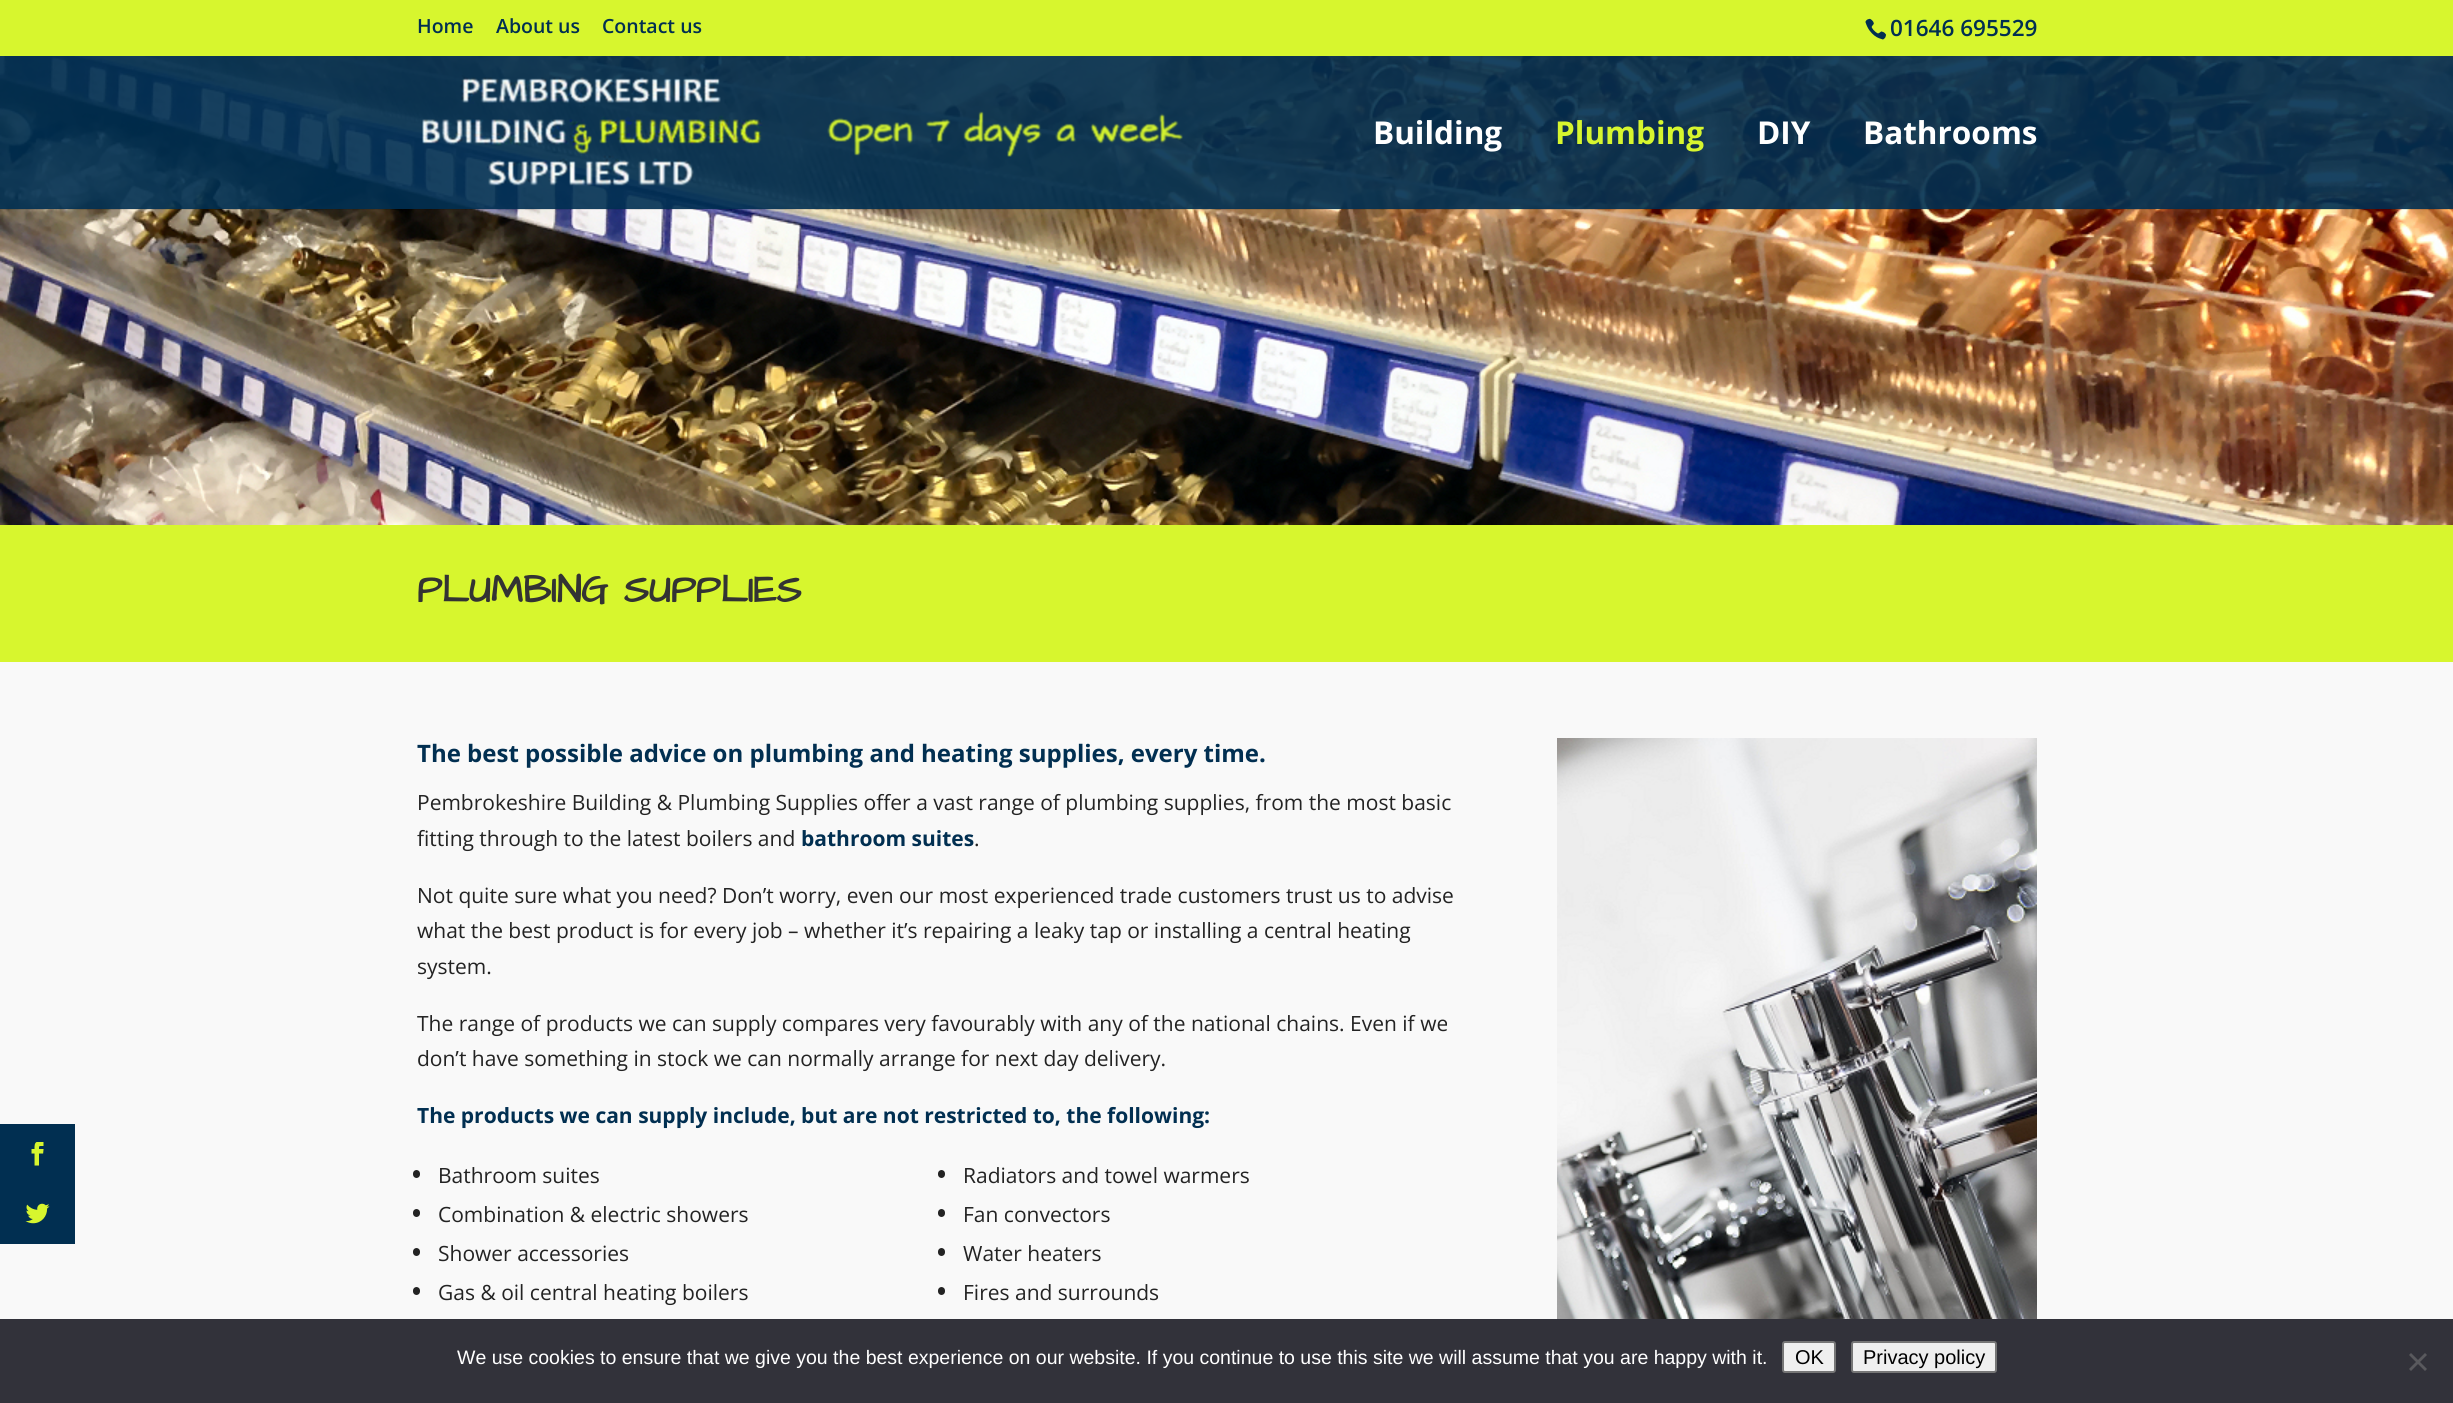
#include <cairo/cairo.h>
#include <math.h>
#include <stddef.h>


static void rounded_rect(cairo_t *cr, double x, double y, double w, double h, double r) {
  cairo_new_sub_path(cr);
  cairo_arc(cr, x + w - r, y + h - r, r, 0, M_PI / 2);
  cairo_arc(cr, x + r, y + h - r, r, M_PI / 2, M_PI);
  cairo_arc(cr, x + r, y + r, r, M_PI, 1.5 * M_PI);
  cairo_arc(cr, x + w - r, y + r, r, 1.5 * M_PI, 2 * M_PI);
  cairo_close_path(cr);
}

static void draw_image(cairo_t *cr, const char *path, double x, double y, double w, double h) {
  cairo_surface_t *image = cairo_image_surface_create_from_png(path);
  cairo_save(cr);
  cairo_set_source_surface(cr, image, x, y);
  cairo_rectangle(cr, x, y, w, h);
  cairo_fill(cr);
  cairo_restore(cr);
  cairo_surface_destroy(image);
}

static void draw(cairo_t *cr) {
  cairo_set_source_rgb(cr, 1, 1, 1);
  cairo_paint(cr);
  cairo_set_source_rgb(cr, 249 / 255.0, 249 / 255.0, 249 / 255.0);
  cairo_rectangle(cr, 0, 662, 2453, 657);
  cairo_fill(cr);
  cairo_set_source_rgb(cr, 1 / 255.0, 47 / 255.0, 81 / 255.0);
  cairo_rectangle(cr, 0, 1124, 75, 120);
  cairo_fill(cr);
  draw_image(cr, "images/1.png", 31, 1142, 13, 24);
  draw_image(cr, "images/2.png", 25, 1203, 25, 21);
  cairo_set_source_rgb(cr, 215 / 255.0, 246 / 255.0, 46 / 255.0);
  cairo_rectangle(cr, 0, 0, 2453, 56);
  cairo_fill(cr);
  draw_image(cr, "images/3.png", 1865, 18, 21, 22);
  draw_image(cr, "images/5.png", 0, 56, 2453, 469);
  cairo_set_source_rgba(cr, 0, 0, 0, 0.1);
  cairo_rectangle(cr, 0, 208, 2453, 2);
  cairo_fill(cr);
  cairo_set_source_rgba(cr, 1 / 255.0, 47 / 255.0, 81 / 255.0, 0.9);
  cairo_rectangle(cr, 0, 56, 2453, 153);
  cairo_fill(cr);
  draw_image(cr, "images/4.png", 422, 75, 761, 111);
  cairo_set_source_rgb(cr, 215 / 255.0, 246 / 255.0, 46 / 255.0);
  cairo_rectangle(cr, 0, 525, 2453, 137);
  cairo_fill(cr);
  cairo_set_source_rgb(cr, 35 / 255.0, 35 / 255.0, 35 / 255.0);
  rounded_rect(cr, 413, 1170, 7, 8, 3.5);
  cairo_fill(cr);
  rounded_rect(cr, 413, 1209, 7, 8, 3.5);
  cairo_fill(cr);
  rounded_rect(cr, 413, 1248, 7, 8, 3.5);
  cairo_fill(cr);
  rounded_rect(cr, 413, 1287, 7, 8, 3.5);
  cairo_fill(cr);
  rounded_rect(cr, 938, 1170, 7, 8, 3.5);
  cairo_fill(cr);
  rounded_rect(cr, 938, 1209, 7, 8, 3.5);
  cairo_fill(cr);
  rounded_rect(cr, 938, 1248, 7, 8, 3.5);
  cairo_fill(cr);
  rounded_rect(cr, 938, 1287, 7, 8, 3.5);
  cairo_fill(cr);
  draw_image(cr, "images/6.png", 1557, 738, 480, 581);
  cairo_set_source_rgb(cr, 50 / 255.0, 50 / 255.0, 58 / 255.0);
  cairo_rectangle(cr, 0, 1319, 2453, 84);
  cairo_fill(cr);
  cairo_set_source_rgb(cr, 239 / 255.0, 239 / 255.0, 239 / 255.0);
  rounded_rect(cr, 1783, 1342, 52, 30, 2);
  cairo_fill_preserve(cr);
  cairo_set_source_rgb(cr, 118 / 255.0, 118 / 255.0, 118 / 255.0);
  cairo_stroke(cr);
  cairo_set_source_rgb(cr, 239 / 255.0, 239 / 255.0, 239 / 255.0);
  rounded_rect(cr, 1852, 1342, 144, 30, 2);
  cairo_fill_preserve(cr);
  cairo_set_source_rgb(cr, 118 / 255.0, 118 / 255.0, 118 / 255.0);
  cairo_stroke(cr);
  cairo_set_source_rgb(cr, 89 / 255.0, 89 / 255.0, 93 / 255.0);
  cairo_new_path(cr);
  cairo_move_to(cr, 2425, 1353);
  cairo_line_to(cr, 2427, 1355);
  cairo_line_to(cr, 2411, 1371);
  cairo_line_to(cr, 2409, 1369);
  cairo_close_path(cr);
  cairo_fill(cr);
  cairo_new_path(cr);
  cairo_move_to(cr, 2409, 1355);
  cairo_line_to(cr, 2411, 1353);
  cairo_line_to(cr, 2427, 1369);
  cairo_line_to(cr, 2425, 1371);
  cairo_close_path(cr);
  cairo_fill(cr);
  cairo_select_font_face(cr, "Open Sans SemiBold", CAIRO_FONT_SLANT_NORMAL, CAIRO_FONT_WEIGHT_NORMAL);
  cairo_set_font_size(cr, 19.5);
  cairo_set_source_rgb(cr, 1 / 255.0, 47 / 255.0, 81 / 255.0);
  cairo_move_to(cr, 417, 33);
  cairo_show_text(cr, "Home");
  cairo_move_to(cr, 496, 33);
  cairo_show_text(cr, "About us");
  cairo_move_to(cr, 602, 33);
  cairo_show_text(cr, "Contact us");
  cairo_set_font_size(cr, 22.5);
  cairo_move_to(cr, 1890, 36);
  cairo_show_text(cr, "01646 695529");
  cairo_select_font_face(cr, "Open Sans", CAIRO_FONT_SLANT_NORMAL, CAIRO_FONT_WEIGHT_BOLD);
  cairo_set_font_size(cr, 31.5);
  cairo_set_source_rgb(cr, 1, 1, 1);
  cairo_move_to(cr, 1373, 144);
  cairo_show_text(cr, "Building");
  cairo_set_source_rgb(cr, 215 / 255.0, 246 / 255.0, 46 / 255.0);
  cairo_move_to(cr, 1555, 144);
  cairo_show_text(cr, "Plumbing");
  cairo_set_source_rgb(cr, 1, 1, 1);
  cairo_move_to(cr, 1757, 144);
  cairo_show_text(cr, "DIY");
  cairo_move_to(cr, 1863, 144);
  cairo_show_text(cr, "Bathrooms");
  cairo_select_font_face(cr, "Architects Daughter", CAIRO_FONT_SLANT_NORMAL, CAIRO_FONT_WEIGHT_BOLD);
  cairo_set_font_size(cr, 39);
  cairo_set_source_rgb(cr, 51 / 255.0, 51 / 255.0, 51 / 255.0);
  cairo_move_to(cr, 417, 602);
  cairo_show_text(cr, "PLUMBING SUPPLIES");
  cairo_select_font_face(cr, "Open Sans", CAIRO_FONT_SLANT_NORMAL, CAIRO_FONT_WEIGHT_BOLD);
  cairo_set_font_size(cr, 24);
  cairo_set_source_rgb(cr, 1 / 255.0, 47 / 255.0, 81 / 255.0);
  cairo_move_to(cr, 417, 762);
  cairo_show_text(cr, "The best possible advice on plumbing and heating supplies, every time.");
  cairo_select_font_face(cr, "Open Sans", CAIRO_FONT_SLANT_NORMAL, CAIRO_FONT_WEIGHT_NORMAL);
  cairo_set_font_size(cr, 21);
  cairo_set_source_rgb(cr, 35 / 255.0, 35 / 255.0, 35 / 255.0);
  cairo_move_to(cr, 417, 810);
  cairo_show_text(cr, "Pembrokeshire Building & Plumbing Supplies offer a vast range of plumbing supplies, from the most basic");
  cairo_move_to(cr, 417, 846);
  cairo_show_text(cr, "fitting through to the latest boilers and");
  cairo_select_font_face(cr, "Open Sans", CAIRO_FONT_SLANT_NORMAL, CAIRO_FONT_WEIGHT_BOLD);
  cairo_set_source_rgb(cr, 1 / 255.0, 47 / 255.0, 81 / 255.0);
  cairo_move_to(cr, 801, 846);
  cairo_show_text(cr, "bathroom suites");
  cairo_select_font_face(cr, "Open Sans", CAIRO_FONT_SLANT_NORMAL, CAIRO_FONT_WEIGHT_NORMAL);
  cairo_set_source_rgb(cr, 35 / 255.0, 35 / 255.0, 35 / 255.0);
  cairo_move_to(cr, 974, 846);
  cairo_show_text(cr, ".");
  cairo_move_to(cr, 417, 903);
  cairo_show_text(cr, "Not quite sure what you need? Don’t worry, even our most experienced trade customers trust us to advise");
  cairo_move_to(cr, 417, 938);
  cairo_show_text(cr, "what the best product is for every job – whether it’s repairing a leaky tap or installing a central heating");
  cairo_move_to(cr, 417, 974);
  cairo_show_text(cr, "system.");
  cairo_move_to(cr, 417, 1031);
  cairo_show_text(cr, "The range of products we can supply compares very favourably with any of the national chains. Even if we");
  cairo_move_to(cr, 417, 1066);
  cairo_show_text(cr, "don’t have something in stock we can normally arrange for next day delivery.");
  cairo_select_font_face(cr, "Open Sans", CAIRO_FONT_SLANT_NORMAL, CAIRO_FONT_WEIGHT_BOLD);
  cairo_set_source_rgb(cr, 1 / 255.0, 47 / 255.0, 81 / 255.0);
  cairo_move_to(cr, 417, 1123);
  cairo_show_text(cr, "The products we can supply include, but are not restricted to, the following:");
  cairo_select_font_face(cr, "Open Sans", CAIRO_FONT_SLANT_NORMAL, CAIRO_FONT_WEIGHT_NORMAL);
  cairo_set_source_rgb(cr, 35 / 255.0, 35 / 255.0, 35 / 255.0);
  cairo_move_to(cr, 438, 1183);
  cairo_show_text(cr, "Bathroom suites");
  cairo_move_to(cr, 438, 1222);
  cairo_show_text(cr, "Combination & electric showers");
  cairo_move_to(cr, 438, 1261);
  cairo_show_text(cr, "Shower accessories");
  cairo_move_to(cr, 438, 1300);
  cairo_show_text(cr, "Gas & oil central heating boilers");
  cairo_move_to(cr, 963, 1183);
  cairo_show_text(cr, "Radiators and towel warmers");
  cairo_move_to(cr, 963, 1222);
  cairo_show_text(cr, "Fan convectors");
  cairo_move_to(cr, 963, 1261);
  cairo_show_text(cr, "Water heaters");
  cairo_move_to(cr, 963, 1300);
  cairo_show_text(cr, "Fires and surrounds");
  cairo_select_font_face(cr, "Liberation Sans", CAIRO_FONT_SLANT_NORMAL, CAIRO_FONT_WEIGHT_NORMAL);
  cairo_set_font_size(cr, 19.5);
  cairo_set_source_rgb(cr, 1, 1, 1);
  cairo_move_to(cr, 457, 1364);
  cairo_show_text(cr, "We use cookies to ensure that we give you the best experience on our website. If you continue to use this site we will assume that you are happy with it.");
  cairo_set_font_size(cr, 20);
  cairo_set_source_rgb(cr, 0, 0, 0);
  cairo_move_to(cr, 1795, 1364);
  cairo_show_text(cr, "OK");
  cairo_move_to(cr, 1863, 1364);
  cairo_show_text(cr, "Privacy policy");
}

int main(void) {
  cairo_surface_t *surface = cairo_image_surface_create(CAIRO_FORMAT_RGB24, 2453, 1403);
  cairo_t *cr = cairo_create(surface);
  cairo_font_options_t *options = cairo_font_options_create();
  cairo_font_options_set_hint_metrics(options, CAIRO_HINT_METRICS_OFF);
  cairo_font_options_set_hint_style(options, CAIRO_HINT_STYLE_NONE);
  cairo_set_font_options(cr, options);
  cairo_set_miter_limit(cr, 4);
  draw(cr);
  cairo_surface_write_to_png(surface, "out.png");
  cairo_font_options_destroy(options);
  cairo_destroy(cr);
  cairo_surface_destroy(surface);
  return 0;
}
